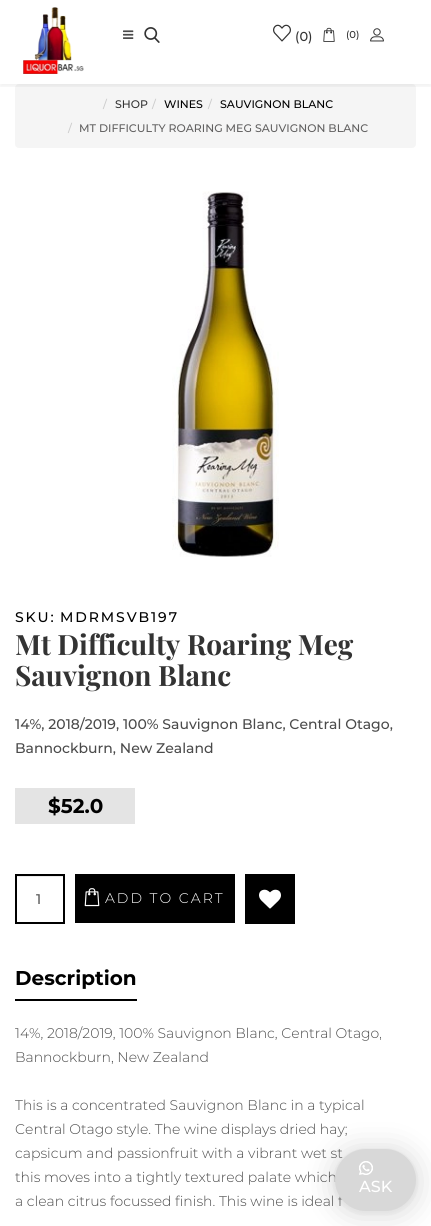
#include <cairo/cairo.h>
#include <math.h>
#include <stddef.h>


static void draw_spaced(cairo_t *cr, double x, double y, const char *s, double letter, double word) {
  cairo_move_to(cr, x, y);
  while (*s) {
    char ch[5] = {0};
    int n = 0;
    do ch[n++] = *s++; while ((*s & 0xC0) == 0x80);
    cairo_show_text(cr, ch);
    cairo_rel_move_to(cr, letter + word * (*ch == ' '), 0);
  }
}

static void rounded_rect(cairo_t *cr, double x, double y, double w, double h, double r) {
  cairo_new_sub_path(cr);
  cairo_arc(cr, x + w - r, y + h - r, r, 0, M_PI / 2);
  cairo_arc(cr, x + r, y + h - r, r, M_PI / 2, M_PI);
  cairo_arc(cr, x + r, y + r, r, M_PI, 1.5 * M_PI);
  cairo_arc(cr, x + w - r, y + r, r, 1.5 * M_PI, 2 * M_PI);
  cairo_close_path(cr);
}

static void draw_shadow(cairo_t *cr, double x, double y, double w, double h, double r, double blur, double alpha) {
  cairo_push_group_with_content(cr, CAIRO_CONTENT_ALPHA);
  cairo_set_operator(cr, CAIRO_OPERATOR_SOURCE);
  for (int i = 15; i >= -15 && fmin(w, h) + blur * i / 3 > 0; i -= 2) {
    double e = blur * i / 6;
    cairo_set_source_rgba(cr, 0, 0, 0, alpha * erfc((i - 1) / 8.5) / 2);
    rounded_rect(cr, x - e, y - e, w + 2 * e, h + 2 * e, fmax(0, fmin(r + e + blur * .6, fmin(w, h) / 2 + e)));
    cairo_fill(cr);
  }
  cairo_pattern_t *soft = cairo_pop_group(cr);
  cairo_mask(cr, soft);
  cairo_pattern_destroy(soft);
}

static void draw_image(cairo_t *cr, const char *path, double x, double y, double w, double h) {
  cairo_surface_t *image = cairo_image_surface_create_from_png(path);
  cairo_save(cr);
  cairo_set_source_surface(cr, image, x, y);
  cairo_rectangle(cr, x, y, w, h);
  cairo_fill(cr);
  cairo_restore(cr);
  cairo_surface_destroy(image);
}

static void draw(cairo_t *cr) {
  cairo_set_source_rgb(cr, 1, 1, 1);
  cairo_paint(cr);
  cairo_set_source_rgb(cr, 245 / 255.0, 245 / 255.0, 245 / 255.0);
  rounded_rect(cr, 15, 84, 401, 64, 4);
  cairo_fill(cr);
  cairo_save(cr);
  cairo_rectangle(cr, 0, 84, 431, 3);
  cairo_clip(cr);
  cairo_set_source_rgb(cr, 0, 0, 0);
  draw_shadow(cr, 0, 3, 431, 84, 0, 1.5, 0.05);
  cairo_restore(cr);
  draw_image(cr, "images/1.png", 23, 7, 61, 67);
  draw_image(cr, "images/2.png", 123, 30, 11, 9);
  draw_image(cr, "images/3.png", 144, 27, 16, 16);
  draw_image(cr, "images/4.png", 273, 24, 18, 18);
  draw_image(cr, "images/5.png", 323, 27, 12, 15);
  draw_image(cr, "images/6.png", 370, 28, 14, 14);
  draw_image(cr, "images/7.png", 172, 191, 107, 366);
  cairo_set_source_rgb(cr, 228 / 255.0, 228 / 255.0, 228 / 255.0);
  cairo_rectangle(cr, 15, 788, 120, 36);
  cairo_fill(cr);
  cairo_set_source_rgb(cr, 236 / 255.0, 236 / 255.0, 236 / 255.0);
  cairo_rectangle(cr, 17, 876, 46, 1);
  cairo_fill(cr);
  cairo_rectangle(cr, 16, 875, 48, 48);
  cairo_set_source_rgb(cr, 0, 0, 0);
  cairo_stroke(cr);
  cairo_rectangle(cr, 75, 874, 160, 49);
  cairo_fill(cr);
  draw_image(cr, "images/8.png", 84, 888, 16, 19);
  cairo_rectangle(cr, 245, 874, 50, 50);
  cairo_fill(cr);
  draw_image(cr, "images/9.png", 259, 889, 22, 20);
  cairo_rectangle(cr, 15, 999, 122, 2);
  cairo_fill(cr);
  cairo_set_source_rgb(cr, 0, 0, 0);
  draw_shadow(cr, 335, 1151, 81, 62, 31, 16, 0.16);
  draw_shadow(cr, 335, 1150, 81, 62, 31, 3, 0.06);
  cairo_select_font_face(cr, "Montserrat Medium", CAIRO_FONT_SLANT_NORMAL, CAIRO_FONT_WEIGHT_NORMAL);
  cairo_set_font_size(cr, 13);
  cairo_set_source_rgb(cr, 51 / 255.0, 51 / 255.0, 51 / 255.0);
  cairo_move_to(cr, 295, 41);
  cairo_show_text(cr, "(0)");
  cairo_set_font_size(cr, 10);
  cairo_move_to(cr, 346, 38);
  cairo_show_text(cr, "(0)");
  cairo_set_font_size(cr, 11);
  cairo_set_source_rgb(cr, 204 / 255.0, 204 / 255.0, 204 / 255.0);
  cairo_move_to(cr, 103, 108);
  cairo_show_text(cr, "/");
  cairo_set_source_rgb(cr, 51 / 255.0, 51 / 255.0, 51 / 255.0);
  cairo_move_to(cr, 115, 108);
  cairo_show_text(cr, "SHOP");
  cairo_set_source_rgb(cr, 204 / 255.0, 204 / 255.0, 204 / 255.0);
  cairo_move_to(cr, 152, 108);
  cairo_show_text(cr, "/");
  cairo_set_source_rgb(cr, 0, 0, 0);
  cairo_move_to(cr, 164, 108);
  cairo_show_text(cr, "WINES");
  cairo_set_source_rgb(cr, 204 / 255.0, 204 / 255.0, 204 / 255.0);
  cairo_move_to(cr, 208, 108);
  cairo_show_text(cr, "/");
  cairo_set_source_rgb(cr, 0, 0, 0);
  cairo_move_to(cr, 220, 108);
  cairo_show_text(cr, "SAUVIGNON BLANC");
  cairo_set_source_rgb(cr, 204 / 255.0, 204 / 255.0, 204 / 255.0);
  cairo_move_to(cr, 68, 132);
  cairo_show_text(cr, "/");
  cairo_set_source_rgb(cr, 97 / 255.0, 96 / 255.0, 96 / 255.0);
  cairo_move_to(cr, 79, 132);
  cairo_show_text(cr, "MT DIFFICULTY ROARING MEG SAUVIGNON BLANC");
  cairo_set_font_size(cr, 14);
  cairo_set_source_rgb(cr, 0, 0, 0);
  draw_spaced(cr, 15, 622, "SKU:", 1.9, 0);
  draw_spaced(cr, 60, 622, "MDRMSVB197", 1.9, 0);
  cairo_select_font_face(cr, "Playfair Display", CAIRO_FONT_SLANT_NORMAL, CAIRO_FONT_WEIGHT_BOLD);
  cairo_set_font_size(cr, 28);
  cairo_set_source_rgb(cr, 51 / 255.0, 51 / 255.0, 51 / 255.0);
  cairo_move_to(cr, 15, 655);
  cairo_show_text(cr, "Mt Difficulty Roaring Meg");
  cairo_move_to(cr, 15, 686);
  cairo_show_text(cr, "Sauvignon Blanc");
  cairo_select_font_face(cr, "Montserrat Medium", CAIRO_FONT_SLANT_NORMAL, CAIRO_FONT_WEIGHT_NORMAL);
  cairo_set_font_size(cr, 14);
  cairo_set_source_rgb(cr, 74 / 255.0, 74 / 255.0, 74 / 255.0);
  cairo_move_to(cr, 15, 729);
  cairo_show_text(cr, "14%, 2018/2019, 100% Sauvignon Blanc, Central Otago,");
  cairo_move_to(cr, 15, 753);
  cairo_show_text(cr, "Bannockburn, New Zealand");
  cairo_select_font_face(cr, "Montserrat", CAIRO_FONT_SLANT_NORMAL, CAIRO_FONT_WEIGHT_BOLD);
  cairo_set_font_size(cr, 20);
  cairo_set_source_rgb(cr, 0, 0, 0);
  cairo_move_to(cr, 48, 813);
  cairo_show_text(cr, "$52.0");
  cairo_select_font_face(cr, "Montserrat Medium", CAIRO_FONT_SLANT_NORMAL, CAIRO_FONT_WEIGHT_NORMAL);
  cairo_set_font_size(cr, 14);
  cairo_set_source_rgb(cr, 85 / 255.0, 85 / 255.0, 85 / 255.0);
  cairo_move_to(cr, 36, 904);
  cairo_show_text(cr, "1");
  cairo_select_font_face(cr, "Montserrat Light", CAIRO_FONT_SLANT_NORMAL, CAIRO_FONT_WEIGHT_NORMAL);
  cairo_set_source_rgb(cr, 1, 1, 1);
  draw_spaced(cr, 105, 903, "ADD TO CART", 2, 0);
  cairo_select_font_face(cr, "Montserrat", CAIRO_FONT_SLANT_NORMAL, CAIRO_FONT_WEIGHT_BOLD);
  cairo_set_font_size(cr, 20);
  cairo_set_source_rgb(cr, 0, 0, 0);
  cairo_move_to(cr, 15, 985);
  cairo_show_text(cr, "Description");
  cairo_select_font_face(cr, "Montserrat Light", CAIRO_FONT_SLANT_NORMAL, CAIRO_FONT_WEIGHT_NORMAL);
  cairo_set_font_size(cr, 14);
  cairo_set_source_rgb(cr, 74 / 255.0, 74 / 255.0, 74 / 255.0);
  cairo_move_to(cr, 15, 1038);
  cairo_show_text(cr, "14%, 2018/2019, 100% Sauvignon Blanc, Central Otago,");
  cairo_move_to(cr, 15, 1062);
  cairo_show_text(cr, "Bannockburn, New Zealand");
  cairo_move_to(cr, 15, 1110);
  cairo_show_text(cr, "This is a concentrated Sauvignon Blanc in a typical");
  cairo_move_to(cr, 15, 1134);
  cairo_show_text(cr, "Central Otago style. The wine displays dried hay;");
  cairo_move_to(cr, 15, 1158);
  cairo_show_text(cr, "capsicum and passionfruit with a vibrant wet st");
  cairo_move_to(cr, 15, 1182);
  cairo_show_text(cr, "this moves into a tightly textured palate which");
  cairo_move_to(cr, 15, 1206);
  cairo_show_text(cr, "a clean citrus focussed finish. This wine is ideal f");
  cairo_set_source_rgb(cr, 216 / 255.0, 216 / 255.0, 216 / 255.0);
  rounded_rect(cr, 335, 1149, 81, 62, 31);
  cairo_fill(cr);
  draw_image(cr, "images/10.png", 359, 1161, 14, 14);
  cairo_select_font_face(cr, "Montserrat Medium", CAIRO_FONT_SLANT_NORMAL, CAIRO_FONT_WEIGHT_NORMAL);
  cairo_set_font_size(cr, 16);
  cairo_set_source_rgb(cr, 1, 1, 1);
  cairo_move_to(cr, 359, 1192);
  cairo_show_text(cr, "ASK");
}

int main(void) {
  cairo_surface_t *surface = cairo_image_surface_create(CAIRO_FORMAT_RGB24, 431, 1226);
  cairo_t *cr = cairo_create(surface);
  cairo_font_options_t *options = cairo_font_options_create();
  cairo_font_options_set_hint_metrics(options, CAIRO_HINT_METRICS_OFF);
  cairo_font_options_set_hint_style(options, CAIRO_HINT_STYLE_NONE);
  cairo_set_font_options(cr, options);
  cairo_set_miter_limit(cr, 4);
  draw(cr);
  cairo_surface_write_to_png(surface, "out.png");
  cairo_font_options_destroy(options);
  cairo_destroy(cr);
  cairo_surface_destroy(surface);
  return 0;
}
